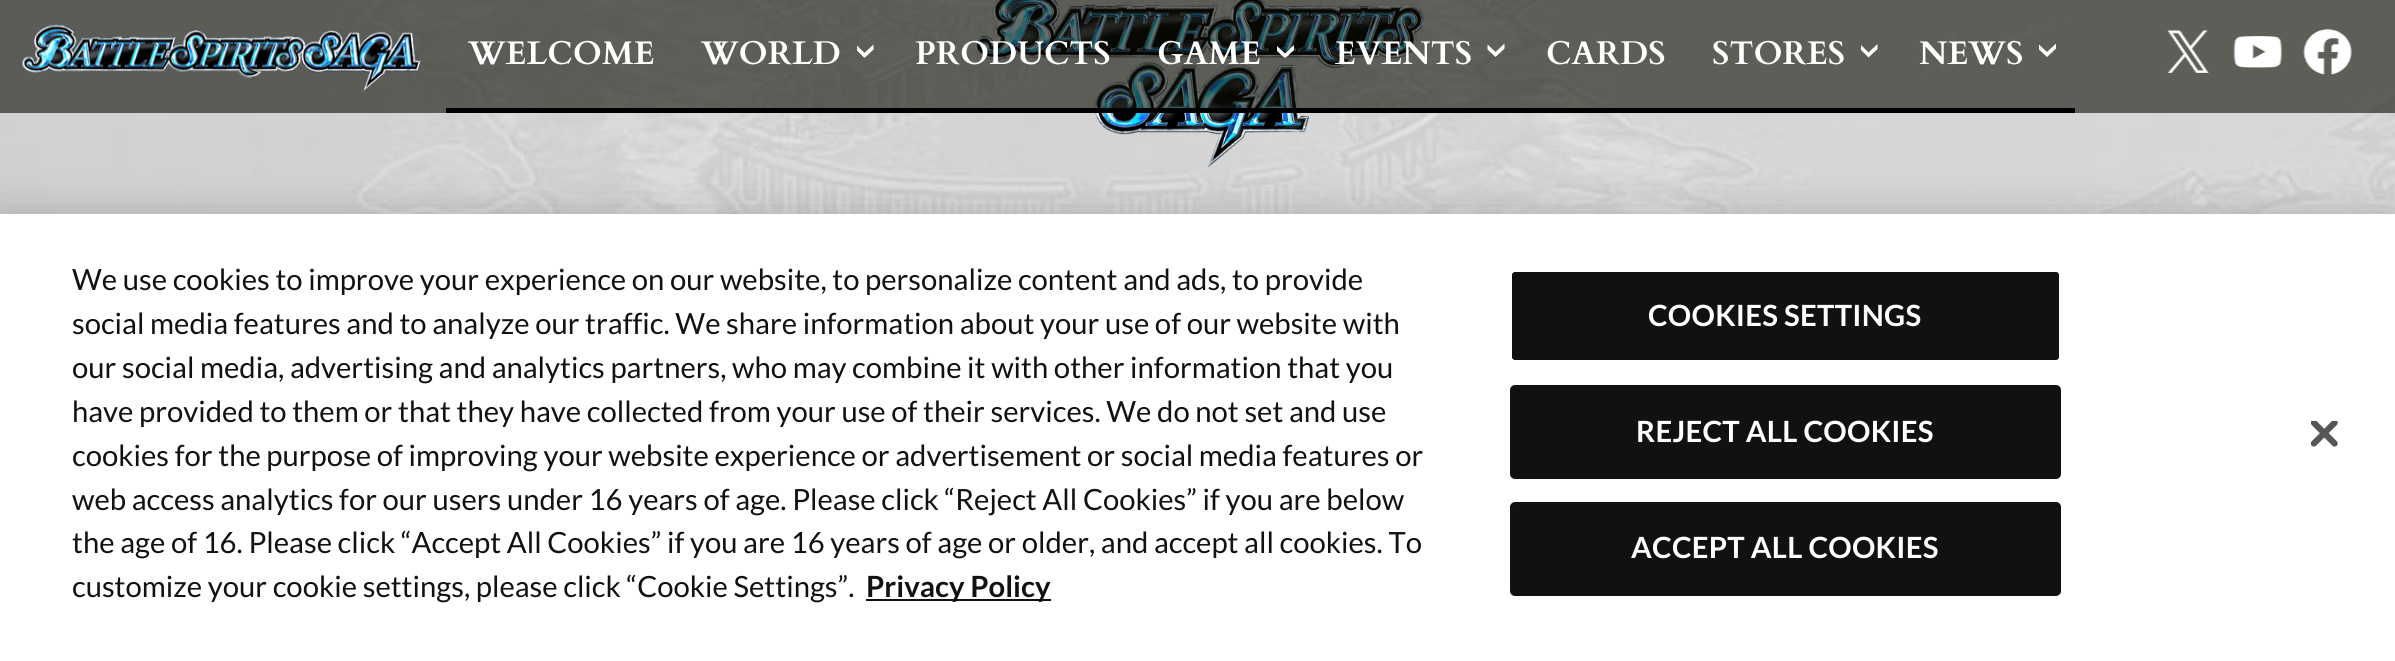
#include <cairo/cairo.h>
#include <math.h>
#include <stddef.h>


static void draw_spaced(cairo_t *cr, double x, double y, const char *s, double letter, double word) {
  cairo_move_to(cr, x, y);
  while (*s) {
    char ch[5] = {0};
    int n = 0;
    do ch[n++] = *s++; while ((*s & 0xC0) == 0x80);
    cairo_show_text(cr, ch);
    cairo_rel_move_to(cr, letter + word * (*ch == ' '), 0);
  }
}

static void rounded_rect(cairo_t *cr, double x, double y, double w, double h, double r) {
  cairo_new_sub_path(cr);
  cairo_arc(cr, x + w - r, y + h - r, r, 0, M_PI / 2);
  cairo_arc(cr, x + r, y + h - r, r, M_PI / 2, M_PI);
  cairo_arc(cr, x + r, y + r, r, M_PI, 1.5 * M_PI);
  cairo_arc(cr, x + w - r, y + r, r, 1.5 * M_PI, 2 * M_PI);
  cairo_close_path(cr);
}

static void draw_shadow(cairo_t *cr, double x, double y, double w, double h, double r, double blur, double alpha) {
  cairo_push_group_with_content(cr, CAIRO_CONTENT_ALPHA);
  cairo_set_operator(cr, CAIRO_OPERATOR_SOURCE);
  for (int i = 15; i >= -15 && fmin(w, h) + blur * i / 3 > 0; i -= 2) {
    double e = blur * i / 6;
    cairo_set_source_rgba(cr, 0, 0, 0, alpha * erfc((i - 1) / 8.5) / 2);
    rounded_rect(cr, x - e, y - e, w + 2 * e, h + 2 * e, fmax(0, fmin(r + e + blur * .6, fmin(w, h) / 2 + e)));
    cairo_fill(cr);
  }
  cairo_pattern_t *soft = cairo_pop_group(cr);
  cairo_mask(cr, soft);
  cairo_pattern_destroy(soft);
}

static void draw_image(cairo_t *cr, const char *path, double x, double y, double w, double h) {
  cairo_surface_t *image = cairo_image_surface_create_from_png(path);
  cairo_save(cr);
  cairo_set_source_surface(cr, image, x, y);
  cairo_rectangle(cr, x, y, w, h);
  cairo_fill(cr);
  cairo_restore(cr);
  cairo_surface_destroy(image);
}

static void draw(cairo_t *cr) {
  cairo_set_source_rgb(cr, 1, 1, 1);
  cairo_paint(cr);
  draw_image(cr, "images/1.png", 0, 0, 2395, 214);
  draw_image(cr, "images/2.png", 974, 0, 451, 168);
  cairo_set_source_rgba(cr, 14 / 255.0, 14 / 255.0, 5 / 255.0, 0.6);
  cairo_rectangle(cr, 0, 0, 2395, 113);
  cairo_fill(cr);
  draw_image(cr, "images/3.png", 22, 24, 399, 68);
  cairo_set_source_rgb(cr, 0, 0, 0);
  cairo_rectangle(cr, 446, 108, 1629, 5);
  cairo_fill(cr);
  cairo_set_source_rgb(cr, 1, 1, 1);
  cairo_new_path(cr);
  cairo_move_to(cr, 857, 45.5);
  cairo_line_to(cr, 864.5, 53);
  cairo_line_to(cr, 873.5, 44.5);
  cairo_line_to(cr, 873.5, 49.5);
  cairo_line_to(cr, 865, 57.5);
  cairo_line_to(cr, 864, 57.5);
  cairo_line_to(cr, 857, 50.5);
  cairo_close_path(cr);
  cairo_fill(cr);
  cairo_new_path(cr);
  cairo_move_to(cr, 1277, 46);
  cairo_line_to(cr, 1285, 53.5);
  cairo_line_to(cr, 1294, 45);
  cairo_line_to(cr, 1294, 50);
  cairo_line_to(cr, 1286, 57.5);
  cairo_line_to(cr, 1284, 57.5);
  cairo_line_to(cr, 1277, 51);
  cairo_close_path(cr);
  cairo_fill(cr);
  cairo_new_path(cr);
  cairo_move_to(cr, 1487.5, 44.5);
  cairo_line_to(cr, 1487.5, 49.5);
  cairo_line_to(cr, 1495.5, 57);
  cairo_line_to(cr, 1504.5, 48.5);
  cairo_line_to(cr, 1504.5, 44);
  cairo_line_to(cr, 1504, 44);
  cairo_line_to(cr, 1495.5, 52);
  cairo_close_path(cr);
  cairo_fill(cr);
  cairo_new_path(cr);
  cairo_move_to(cr, 1861, 45);
  cairo_line_to(cr, 1868.5, 52.5);
  cairo_line_to(cr, 1877.5, 44);
  cairo_line_to(cr, 1877.5, 49);
  cairo_line_to(cr, 1868.5, 57.5);
  cairo_line_to(cr, 1861, 50);
  cairo_close_path(cr);
  cairo_fill(cr);
  cairo_new_path(cr);
  cairo_move_to(cr, 2039, 44.5);
  cairo_line_to(cr, 2039, 49.5);
  cairo_line_to(cr, 2047, 57);
  cairo_line_to(cr, 2056, 48.5);
  cairo_line_to(cr, 2056, 44);
  cairo_line_to(cr, 2055.5, 44);
  cairo_line_to(cr, 2047, 52);
  cairo_close_path(cr);
  cairo_fill(cr);
  draw_image(cr, "images/4.png", 2167, 30, 42, 43);
  draw_image(cr, "images/5.png", 2233, 36, 49, 32);
  draw_image(cr, "images/6.png", 2303, 29, 49, 46);
  cairo_set_source_rgb(cr, 0, 0, 0);
  draw_shadow(cr, 0, 214, 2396, 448, 0, 20, 0.2);
  cairo_set_source_rgb(cr, 1, 1, 1);
  cairo_rectangle(cr, 0, 214, 2395, 447);
  cairo_fill(cr);
  cairo_set_source_rgb(cr, 17 / 255.0, 17 / 255.0, 17 / 255.0);
  cairo_rectangle(cr, 866, 599, 185, 2);
  cairo_fill(cr);
  rounded_rect(cr, 1511, 271, 549, 90, 4);
  cairo_fill_preserve(cr);
  cairo_set_source_rgb(cr, 1, 1, 1);
  cairo_stroke(cr);
  cairo_set_source_rgb(cr, 17 / 255.0, 17 / 255.0, 17 / 255.0);
  rounded_rect(cr, 1511, 386, 549, 92, 4);
  cairo_fill_preserve(cr);
  cairo_stroke(cr);
  rounded_rect(cr, 1511, 503, 549, 92, 4);
  cairo_fill_preserve(cr);
  cairo_stroke(cr);
  draw_image(cr, "images/7.png", 2311, 421, 27, 26);
  cairo_select_font_face(cr, "Cardo", CAIRO_FONT_SLANT_NORMAL, CAIRO_FONT_WEIGHT_BOLD);
  cairo_set_font_size(cr, 32.75);
  cairo_set_source_rgb(cr, 1, 1, 1);
  cairo_move_to(cr, 468, 64);
  cairo_show_text(cr, "WELCOME");
  cairo_move_to(cr, 701, 64);
  cairo_show_text(cr, "WORLD");
  cairo_move_to(cr, 915, 64);
  cairo_show_text(cr, "PRODUCTS");
  cairo_move_to(cr, 1157, 64);
  cairo_show_text(cr, "GAME");
  cairo_move_to(cr, 1335, 64);
  cairo_show_text(cr, "EVENTS");
  cairo_move_to(cr, 1546, 64);
  cairo_show_text(cr, "CARDS");
  cairo_move_to(cr, 1712, 64);
  cairo_show_text(cr, "STORES");
  cairo_move_to(cr, 1919, 64);
  cairo_show_text(cr, "NEWS");
  cairo_select_font_face(cr, "Lato", CAIRO_FONT_SLANT_NORMAL, CAIRO_FONT_WEIGHT_NORMAL);
  cairo_set_font_size(cr, 29.25);
  cairo_set_source_rgb(cr, 17 / 255.0, 17 / 255.0, 17 / 255.0);
  cairo_move_to(cr, 72, 290);
  cairo_show_text(cr, "We use cookies to improve your experience on our website, to personalize content and ads, to provide");
  cairo_move_to(cr, 72, 334);
  cairo_show_text(cr, "social media features and to analyze our traffic. We share information about your use of our website with");
  cairo_move_to(cr, 72, 378);
  cairo_show_text(cr, "our social media, advertising and analytics partners, who may combine it with other information that you");
  cairo_move_to(cr, 72, 422);
  cairo_show_text(cr, "have provided to them or that they have collected from your use of their services. We do not set and use");
  cairo_move_to(cr, 72, 466);
  cairo_show_text(cr, "cookies for the purpose of improving your website experience or advertisement or social media features or");
  cairo_move_to(cr, 72, 510);
  cairo_show_text(cr, "web access analytics for our users under 16 years of age. Please click “Reject All Cookies” if you are below");
  cairo_move_to(cr, 72, 553);
  cairo_show_text(cr, "the age of 16. Please click “Accept All Cookies” if you are 16 years of age or older, and accept all cookies. To");
  cairo_move_to(cr, 72, 597);
  cairo_show_text(cr, "customize your cookie settings, please click “Cookie Settings”.");
  cairo_select_font_face(cr, "Lato", CAIRO_FONT_SLANT_NORMAL, CAIRO_FONT_WEIGHT_BOLD);
  cairo_move_to(cr, 866, 597);
  cairo_show_text(cr, "Privacy Policy");
  cairo_set_source_rgb(cr, 1, 1, 1);
  draw_spaced(cr, 1648, 326, "COOKIES SETTINGS", 0.25, 0);
  draw_spaced(cr, 1636, 442, "REJECT ALL COOKIES", 0.25, 0);
  draw_spaced(cr, 1631, 558, "ACCEPT ALL COOKIES", 0.25, 0);
}

int main(void) {
  cairo_surface_t *surface = cairo_image_surface_create(CAIRO_FORMAT_RGB24, 2395, 661);
  cairo_t *cr = cairo_create(surface);
  cairo_font_options_t *options = cairo_font_options_create();
  cairo_font_options_set_hint_metrics(options, CAIRO_HINT_METRICS_OFF);
  cairo_font_options_set_hint_style(options, CAIRO_HINT_STYLE_NONE);
  cairo_set_font_options(cr, options);
  cairo_set_miter_limit(cr, 4);
  draw(cr);
  cairo_surface_write_to_png(surface, "out.png");
  cairo_font_options_destroy(options);
  cairo_destroy(cr);
  cairo_surface_destroy(surface);
  return 0;
}
